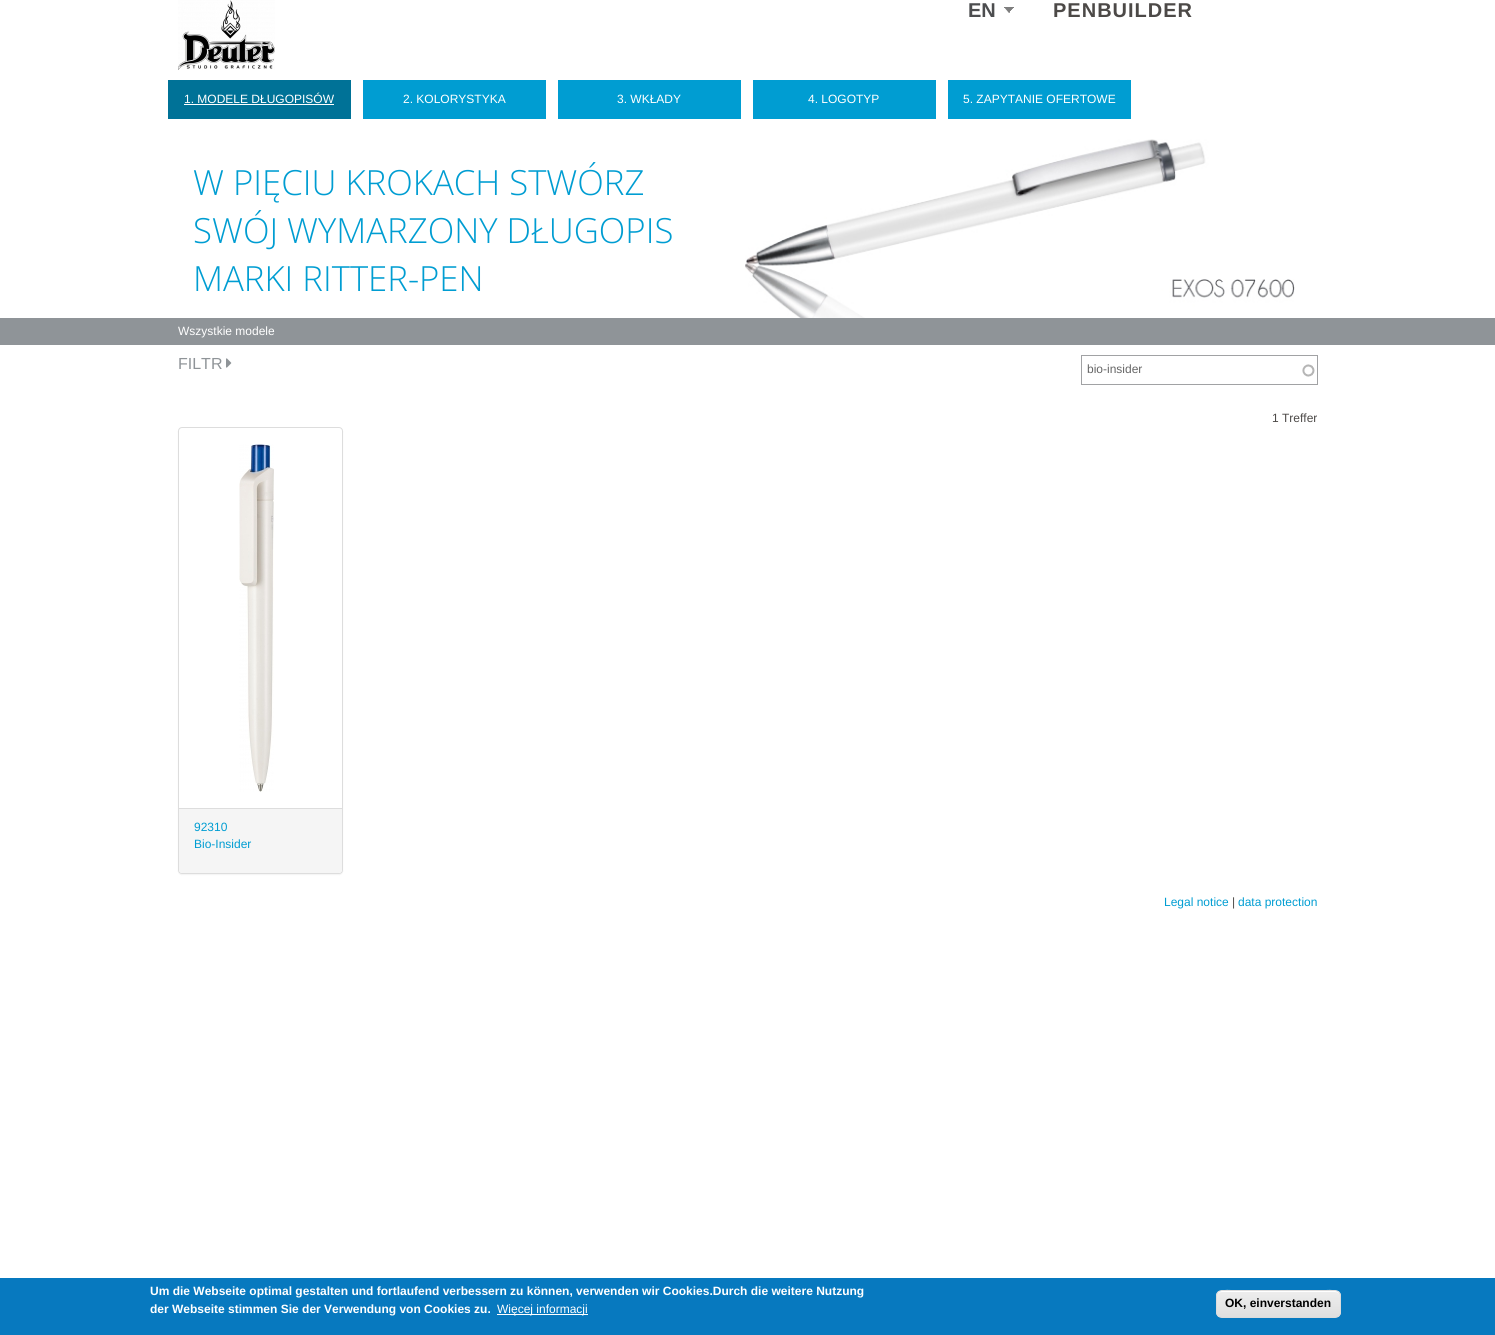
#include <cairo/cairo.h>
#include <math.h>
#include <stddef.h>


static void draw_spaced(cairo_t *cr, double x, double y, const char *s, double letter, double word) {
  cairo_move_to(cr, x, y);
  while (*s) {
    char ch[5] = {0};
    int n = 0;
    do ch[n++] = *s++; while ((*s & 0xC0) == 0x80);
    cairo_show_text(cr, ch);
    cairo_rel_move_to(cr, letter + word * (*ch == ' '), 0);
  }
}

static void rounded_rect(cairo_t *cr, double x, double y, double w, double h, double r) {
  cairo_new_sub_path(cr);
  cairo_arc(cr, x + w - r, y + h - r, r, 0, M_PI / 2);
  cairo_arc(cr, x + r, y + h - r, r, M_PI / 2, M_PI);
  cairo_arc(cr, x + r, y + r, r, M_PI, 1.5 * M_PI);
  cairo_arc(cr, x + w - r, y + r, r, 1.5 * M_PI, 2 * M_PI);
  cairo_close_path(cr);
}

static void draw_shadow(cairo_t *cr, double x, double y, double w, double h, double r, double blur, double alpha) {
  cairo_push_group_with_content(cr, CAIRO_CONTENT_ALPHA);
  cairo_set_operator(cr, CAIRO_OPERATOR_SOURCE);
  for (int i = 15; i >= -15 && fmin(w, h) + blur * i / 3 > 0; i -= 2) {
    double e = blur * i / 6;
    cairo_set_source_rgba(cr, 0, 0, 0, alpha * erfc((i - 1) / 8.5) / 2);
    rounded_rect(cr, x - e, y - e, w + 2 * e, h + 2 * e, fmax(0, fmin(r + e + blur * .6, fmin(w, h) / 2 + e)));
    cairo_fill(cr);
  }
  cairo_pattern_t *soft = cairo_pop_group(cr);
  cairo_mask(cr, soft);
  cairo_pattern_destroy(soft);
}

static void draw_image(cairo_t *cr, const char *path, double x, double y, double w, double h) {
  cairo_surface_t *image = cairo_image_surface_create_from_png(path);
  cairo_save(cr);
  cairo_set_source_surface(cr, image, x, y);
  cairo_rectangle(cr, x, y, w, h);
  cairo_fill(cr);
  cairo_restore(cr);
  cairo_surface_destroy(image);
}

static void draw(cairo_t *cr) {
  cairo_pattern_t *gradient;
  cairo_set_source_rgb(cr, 1, 1, 1);
  cairo_paint(cr);
  draw_image(cr, "images/1.png", 178, 0, 97, 70);
  draw_image(cr, "images/2.png", 1004, 7, 10, 6);
  cairo_set_source_rgb(cr, 0, 114 / 255.0, 151 / 255.0);
  cairo_rectangle(cr, 168, 80, 183, 39);
  cairo_fill(cr);
  cairo_set_source_rgb(cr, 1, 1, 1);
  cairo_rectangle(cr, 184, 104, 150, 1);
  cairo_fill(cr);
  cairo_set_source_rgb(cr, 0, 157 / 255.0, 210 / 255.0);
  cairo_rectangle(cr, 363, 80, 183, 39);
  cairo_fill(cr);
  cairo_rectangle(cr, 558, 80, 183, 39);
  cairo_fill(cr);
  cairo_rectangle(cr, 753, 80, 183, 39);
  cairo_fill(cr);
  cairo_rectangle(cr, 948, 80, 183, 39);
  cairo_fill(cr);
  draw_image(cr, "images/3.png", 745, 139, 550, 179);
  cairo_set_source_rgb(cr, 143 / 255.0, 148 / 255.0, 152 / 255.0);
  cairo_rectangle(cr, 0, 318, 1495, 27);
  cairo_fill(cr);
  draw_image(cr, "images/4.png", 226, 358, 6, 10);
  draw_image(cr, "images/5.png", 1302, 364, 13, 13);
  cairo_rectangle(cr, 1081.5, 355.5, 236, 29);
  cairo_set_source_rgb(cr, 161 / 255.0, 162 / 255.0, 164 / 255.0);
  cairo_set_line_width(cr, 1);
  cairo_stroke(cr);
  cairo_set_source_rgb(cr, 0, 0, 0);
  draw_shadow(cr, 178, 428, 165, 447, 4, 0.5, 0.05);
  cairo_set_source_rgb(cr, 1, 1, 1);
  rounded_rect(cr, 178.5, 427.5, 164, 446, 3.5);
  cairo_fill_preserve(cr);
  cairo_set_source_rgb(cr, 221 / 255.0, 221 / 255.0, 221 / 255.0);
  cairo_stroke(cr);
  draw_image(cr, "images/6.png", 239, 444, 35, 348);
  cairo_set_source_rgb(cr, 245 / 255.0, 245 / 255.0, 245 / 255.0);
  cairo_new_path(cr);
  cairo_move_to(cr, 179, 808);
  cairo_line_to(cr, 342, 808);
  cairo_line_to(cr, 342, 870);
  cairo_curve_to(cr, 342, 871.5, 340.5, 873, 339, 873);
  cairo_line_to(cr, 182, 873);
  cairo_curve_to(cr, 180.5, 873, 179, 871.5, 179, 870);
  cairo_close_path(cr);
  cairo_fill(cr);
  cairo_set_source_rgb(cr, 221 / 255.0, 221 / 255.0, 221 / 255.0);
  cairo_rectangle(cr, 179, 808, 163, 1);
  cairo_fill(cr);
  cairo_set_source_rgb(cr, 7 / 255.0, 121 / 255.0, 191 / 255.0);
  cairo_rectangle(cr, 0, 1278, 1495, 57);
  cairo_fill(cr);
  cairo_set_source_rgb(cr, 1, 1, 1);
  cairo_rectangle(cr, 497, 1314, 91, 1);
  cairo_fill(cr);
  cairo_save(cr);
  rounded_rect(cr, 1216, 1290, 125, 28, 6);
  cairo_clip(cr);
  gradient = cairo_pattern_create_linear(1279, 1291, 1279, 1317);
  cairo_pattern_add_color_stop_rgba(gradient, 0.05, 237 / 255.0, 237 / 255.0, 237 / 255.0, 1);
  cairo_pattern_add_color_stop_rgba(gradient, 1, 223 / 255.0, 223 / 255.0, 223 / 255.0, 1);
  cairo_set_source(cr, gradient);
  cairo_pattern_destroy(gradient);
  cairo_rectangle(cr, 1216, 1291, 125, 26);
  cairo_fill(cr);
  cairo_restore(cr);
  cairo_new_path(cr);
  cairo_move_to(cr, 1222, 1292);
  cairo_line_to(cr, 1335, 1292);
  cairo_curve_to(cr, 1338, 1292, 1340, 1294, 1340, 1297);
  cairo_curve_to(cr, 1340, 1286, 1321, 1291, 1316, 1291);
  cairo_line_to(cr, 1241, 1291);
  cairo_curve_to(cr, 1236, 1291, 1217, 1286, 1217, 1297);
  cairo_curve_to(cr, 1217, 1294, 1219, 1292, 1222, 1292);
  cairo_close_path(cr);
  cairo_fill(cr);
  rounded_rect(cr, 1216.5, 1290.5, 124, 27, 5.5);
  cairo_set_source_rgb(cr, 220 / 255.0, 220 / 255.0, 220 / 255.0);
  cairo_stroke(cr);
  cairo_select_font_face(cr, "Liberation Sans", CAIRO_FONT_SLANT_NORMAL, CAIRO_FONT_WEIGHT_BOLD);
  cairo_set_font_size(cr, 20);
  cairo_set_source_rgb(cr, 76 / 255.0, 77 / 255.0, 79 / 255.0);
  cairo_move_to(cr, 968, 17);
  cairo_show_text(cr, "EN");
  cairo_set_source_rgb(cr, 76 / 255.0, 73 / 255.0, 71 / 255.0);
  draw_spaced(cr, 1053, 17, "PENBUILDER", 1, 0);
  cairo_select_font_face(cr, "Liberation Sans", CAIRO_FONT_SLANT_NORMAL, CAIRO_FONT_WEIGHT_NORMAL);
  cairo_set_font_size(cr, 12);
  cairo_set_source_rgb(cr, 1, 1, 1);
  cairo_move_to(cr, 184, 103);
  cairo_show_text(cr, "1. MODELE DŁUGOPISÓW");
  cairo_move_to(cr, 403, 103);
  cairo_show_text(cr, "2. KOLORYSTYKA");
  cairo_move_to(cr, 617, 103);
  cairo_show_text(cr, "3. WKŁADY");
  cairo_move_to(cr, 808, 103);
  cairo_show_text(cr, "4. LOGOTYP");
  cairo_move_to(cr, 963, 103);
  cairo_show_text(cr, "5. ZAPYTANIE OFERTOWE");
  cairo_select_font_face(cr, "Open Sans Light", CAIRO_FONT_SLANT_NORMAL, CAIRO_FONT_WEIGHT_NORMAL);
  cairo_set_font_size(cr, 34.7);
  cairo_set_source_rgb(cr, 0, 157 / 255.0, 210 / 255.0);
  cairo_move_to(cr, 193, 195);
  cairo_show_text(cr, "W PIĘCIU KROKACH STWÓRZ");
  cairo_move_to(cr, 193, 243);
  cairo_show_text(cr, "SWÓJ WYMARZONY DŁUGOPIS");
  cairo_move_to(cr, 193, 291);
  cairo_show_text(cr, "MARKI RITTER-PEN");
  cairo_select_font_face(cr, "Liberation Sans", CAIRO_FONT_SLANT_NORMAL, CAIRO_FONT_WEIGHT_NORMAL);
  cairo_set_font_size(cr, 12);
  cairo_set_source_rgb(cr, 1, 1, 1);
  cairo_move_to(cr, 178, 335);
  cairo_show_text(cr, "Wszystkie modele");
  cairo_set_font_size(cr, 16);
  cairo_set_source_rgb(cr, 143 / 255.0, 148 / 255.0, 152 / 255.0);
  cairo_move_to(cr, 178, 369);
  cairo_show_text(cr, "FILTR");
  cairo_set_font_size(cr, 12);
  cairo_set_source_rgb(cr, 102 / 255.0, 102 / 255.0, 102 / 255.0);
  cairo_move_to(cr, 1087, 373);
  cairo_show_text(cr, "bio-insider");
  cairo_set_source_rgb(cr, 76 / 255.0, 73 / 255.0, 71 / 255.0);
  cairo_move_to(cr, 1272, 422);
  cairo_show_text(cr, "1 Treffer");
  cairo_set_source_rgb(cr, 0, 157 / 255.0, 210 / 255.0);
  cairo_move_to(cr, 194, 831);
  cairo_show_text(cr, "92310");
  cairo_move_to(cr, 194, 848);
  cairo_show_text(cr, "Bio-Insider");
  cairo_move_to(cr, 1164, 906);
  cairo_show_text(cr, "Legal notice");
  cairo_set_source_rgb(cr, 76 / 255.0, 73 / 255.0, 71 / 255.0);
  cairo_move_to(cr, 1232, 906);
  cairo_show_text(cr, "|");
  cairo_set_source_rgb(cr, 0, 157 / 255.0, 210 / 255.0);
  cairo_move_to(cr, 1238, 906);
  cairo_show_text(cr, "data protection");
  cairo_select_font_face(cr, "Liberation Sans", CAIRO_FONT_SLANT_NORMAL, CAIRO_FONT_WEIGHT_BOLD);
  cairo_set_source_rgb(cr, 1, 1, 1);
  cairo_move_to(cr, 150, 1295);
  cairo_show_text(cr, "Um die Webseite optimal gestalten und fortlaufend verbessern zu können, verwenden wir Cookies.Durch die weitere Nutzung");
  cairo_move_to(cr, 150, 1313);
  cairo_show_text(cr, "der Webseite stimmen Sie der Verwendung von Cookies zu.");
  cairo_select_font_face(cr, "Liberation Sans", CAIRO_FONT_SLANT_NORMAL, CAIRO_FONT_WEIGHT_NORMAL);
  cairo_move_to(cr, 497, 1313);
  cairo_show_text(cr, "Więcej informacji");
  cairo_select_font_face(cr, "Liberation Sans", CAIRO_FONT_SLANT_NORMAL, CAIRO_FONT_WEIGHT_BOLD);
  cairo_set_source_rgb(cr, 0, 0, 0);
  cairo_move_to(cr, 1225, 1307);
  cairo_show_text(cr, "OK, einverstanden");
}

int main(void) {
  cairo_surface_t *surface = cairo_image_surface_create(CAIRO_FORMAT_RGB24, 1495, 1335);
  cairo_t *cr = cairo_create(surface);
  cairo_font_options_t *options = cairo_font_options_create();
  cairo_font_options_set_hint_metrics(options, CAIRO_HINT_METRICS_OFF);
  cairo_font_options_set_hint_style(options, CAIRO_HINT_STYLE_NONE);
  cairo_set_font_options(cr, options);
  cairo_set_miter_limit(cr, 4);
  draw(cr);
  cairo_surface_write_to_png(surface, "out.png");
  cairo_font_options_destroy(options);
  cairo_destroy(cr);
  cairo_surface_destroy(surface);
  return 0;
}
